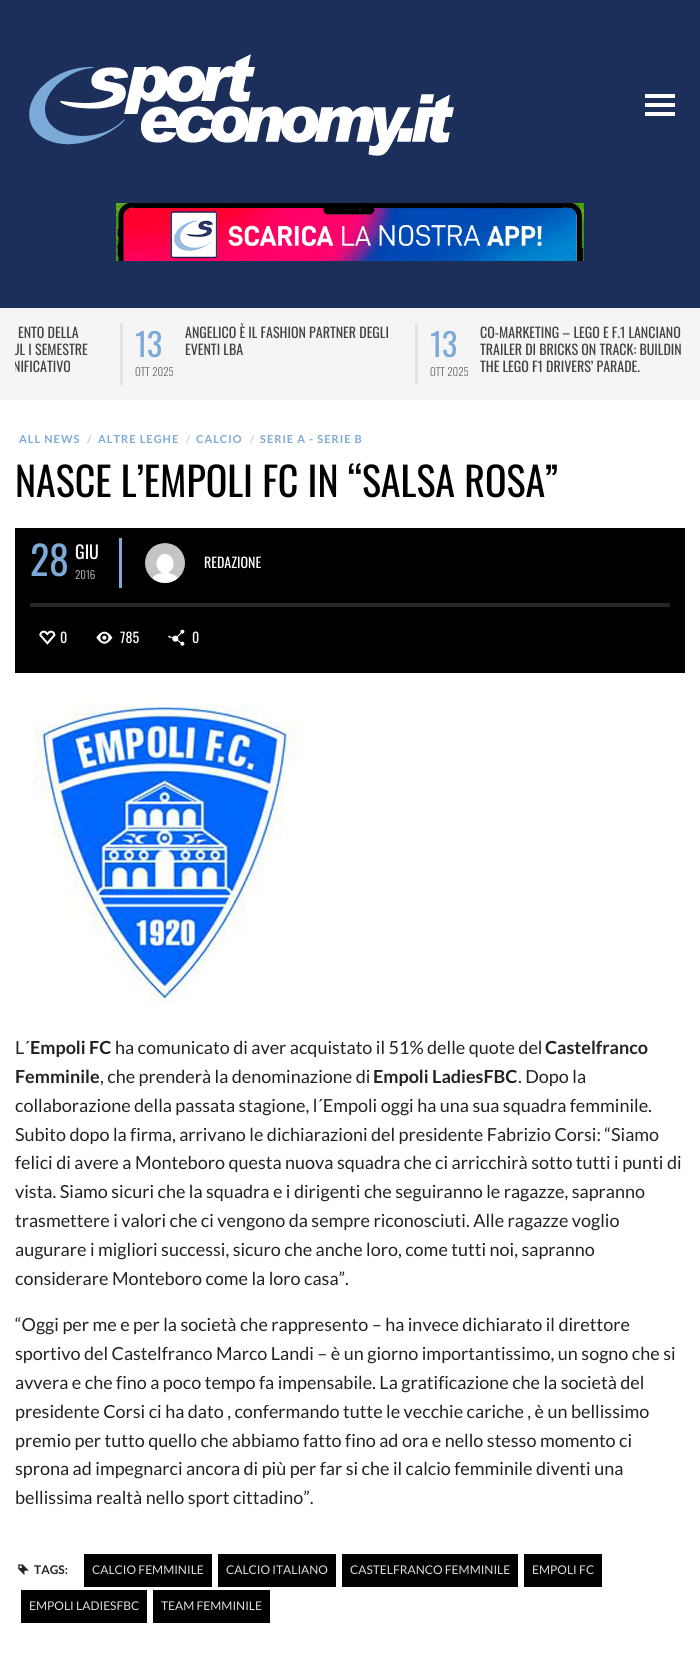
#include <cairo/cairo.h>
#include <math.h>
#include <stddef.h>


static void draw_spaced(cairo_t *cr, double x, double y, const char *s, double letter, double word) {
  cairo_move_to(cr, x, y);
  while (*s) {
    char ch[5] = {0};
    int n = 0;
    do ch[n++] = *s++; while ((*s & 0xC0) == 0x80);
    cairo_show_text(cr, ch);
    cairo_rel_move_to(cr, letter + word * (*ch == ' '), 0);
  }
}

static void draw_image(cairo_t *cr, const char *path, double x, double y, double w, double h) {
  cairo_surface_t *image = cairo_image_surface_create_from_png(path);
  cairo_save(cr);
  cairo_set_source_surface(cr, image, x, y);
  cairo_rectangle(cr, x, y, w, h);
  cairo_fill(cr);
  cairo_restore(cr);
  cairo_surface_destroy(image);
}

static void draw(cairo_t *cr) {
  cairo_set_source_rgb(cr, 1, 1, 1);
  cairo_paint(cr);
  cairo_set_source_rgb(cr, 28 / 255.0, 47 / 255.0, 90 / 255.0);
  cairo_rectangle(cr, 0, 0, 700, 308);
  cairo_fill(cr);
  draw_image(cr, "images/1.png", 29, 54, 425, 102);
  cairo_set_source_rgb(cr, 1, 1, 1);
  cairo_rectangle(cr, 645, 94, 30, 4);
  cairo_fill(cr);
  cairo_rectangle(cr, 645, 103, 30, 4);
  cairo_fill(cr);
  cairo_rectangle(cr, 645, 112, 30, 4);
  cairo_fill(cr);
  draw_image(cr, "images/2.png", 116, 203, 468, 58);
  cairo_set_source_rgb(cr, 245 / 255.0, 245 / 255.0, 245 / 255.0);
  cairo_rectangle(cr, 0, 308, 700, 92);
  cairo_fill(cr);
  cairo_set_source_rgb(cr, 227 / 255.0, 227 / 255.0, 227 / 255.0);
  cairo_rectangle(cr, 120, 323, 3, 62);
  cairo_fill(cr);
  cairo_rectangle(cr, 415, 323, 3, 62);
  cairo_fill(cr);
  cairo_set_source_rgb(cr, 0, 0, 0);
  cairo_rectangle(cr, 15, 528, 670, 145);
  cairo_fill(cr);
  cairo_set_source_rgb(cr, 123 / 255.0, 170 / 255.0, 216 / 255.0);
  cairo_rectangle(cr, 119, 538, 3, 50);
  cairo_fill(cr);
  draw_image(cr, "images/3.png", 145, 543, 40, 40);
  cairo_set_source_rgb(cr, 38 / 255.0, 38 / 255.0, 38 / 255.0);
  cairo_rectangle(cr, 30, 603, 640, 4);
  cairo_fill(cr);
  draw_image(cr, "images/4.png", 39, 630, 17, 15);
  draw_image(cr, "images/5.png", 96, 631, 17, 13);
  draw_image(cr, "images/6.png", 168, 629, 17, 17);
  draw_image(cr, "images/7.png", 33, 703, 270, 300);
  draw_image(cr, "images/8.png", 18, 1564, 11, 11);
  cairo_set_source_rgb(cr, 0, 0, 0);
  cairo_rectangle(cr, 84, 1554, 128, 33);
  cairo_fill(cr);
  cairo_rectangle(cr, 218, 1554, 118, 33);
  cairo_fill(cr);
  cairo_rectangle(cr, 342, 1554, 176, 33);
  cairo_fill(cr);
  cairo_rectangle(cr, 524, 1554, 78, 33);
  cairo_fill(cr);
  cairo_rectangle(cr, 21, 1590, 126, 33);
  cairo_fill(cr);
  cairo_rectangle(cr, 153, 1590, 117, 33);
  cairo_fill(cr);
  cairo_select_font_face(cr, "Oswald", CAIRO_FONT_SLANT_NORMAL, CAIRO_FONT_WEIGHT_NORMAL);
  cairo_set_font_size(cr, 14);
  cairo_set_source_rgb(cr, 66 / 255.0, 66 / 255.0, 66 / 255.0);
  cairo_move_to(cr, 18, 338);
  cairo_show_text(cr, "ENTO DELLA");
  cairo_save(cr);
  cairo_rectangle(cr, 15, 323, 670, 62);
  cairo_clip(cr);
  cairo_move_to(cr, 12, 355);
  cairo_show_text(cr, "UL I SEMESTRE");
  cairo_move_to(cr, 13, 372);
  cairo_show_text(cr, "NIFICATIVO");
  cairo_restore(cr);
  cairo_set_font_size(cr, 32);
  cairo_set_source_rgb(cr, 123 / 255.0, 170 / 255.0, 216 / 255.0);
  cairo_move_to(cr, 135, 357);
  cairo_show_text(cr, "13");
  cairo_select_font_face(cr, "Oswald Light", CAIRO_FONT_SLANT_NORMAL, CAIRO_FONT_WEIGHT_NORMAL);
  cairo_set_font_size(cr, 11);
  cairo_set_source_rgb(cr, 102 / 255.0, 102 / 255.0, 102 / 255.0);
  cairo_move_to(cr, 135, 376);
  cairo_show_text(cr, "OTT 2025");
  cairo_select_font_face(cr, "Oswald", CAIRO_FONT_SLANT_NORMAL, CAIRO_FONT_WEIGHT_NORMAL);
  cairo_set_font_size(cr, 14);
  cairo_set_source_rgb(cr, 66 / 255.0, 66 / 255.0, 66 / 255.0);
  cairo_move_to(cr, 185, 338);
  cairo_show_text(cr, "ANGELICO È IL FASHION PARTNER DEGLI");
  cairo_move_to(cr, 185, 355);
  cairo_show_text(cr, "EVENTI LBA");
  cairo_set_font_size(cr, 32);
  cairo_set_source_rgb(cr, 123 / 255.0, 170 / 255.0, 216 / 255.0);
  cairo_move_to(cr, 430, 357);
  cairo_show_text(cr, "13");
  cairo_select_font_face(cr, "Oswald Light", CAIRO_FONT_SLANT_NORMAL, CAIRO_FONT_WEIGHT_NORMAL);
  cairo_set_font_size(cr, 11);
  cairo_set_source_rgb(cr, 102 / 255.0, 102 / 255.0, 102 / 255.0);
  cairo_move_to(cr, 430, 376);
  cairo_show_text(cr, "OTT 2025");
  cairo_select_font_face(cr, "Oswald", CAIRO_FONT_SLANT_NORMAL, CAIRO_FONT_WEIGHT_NORMAL);
  cairo_set_font_size(cr, 14);
  cairo_set_source_rgb(cr, 66 / 255.0, 66 / 255.0, 66 / 255.0);
  cairo_move_to(cr, 480, 338);
  cairo_show_text(cr, "CO-MARKETING – LEGO E F.1 LANCIANO");
  cairo_move_to(cr, 480, 355);
  cairo_show_text(cr, "TRAILER DI BRICKS ON TRACK: BUILDIN");
  cairo_move_to(cr, 480, 372);
  cairo_show_text(cr, "THE LEGO F1 DRIVERS’ PARADE.");
  cairo_select_font_face(cr, "Lato", CAIRO_FONT_SLANT_NORMAL, CAIRO_FONT_WEIGHT_BOLD);
  cairo_set_font_size(cr, 11);
  cairo_set_source_rgb(cr, 123 / 255.0, 170 / 255.0, 216 / 255.0);
  draw_spaced(cr, 19, 443, "ALL NEWS", 1, 0);
  cairo_set_source_rgb(cr, 204 / 255.0, 204 / 255.0, 204 / 255.0);
  draw_spaced(cr, 87, 443, "/", 1, 0);
  cairo_set_source_rgb(cr, 123 / 255.0, 170 / 255.0, 216 / 255.0);
  draw_spaced(cr, 98, 443, "ALTRE LEGHE", 1, 0);
  cairo_set_source_rgb(cr, 204 / 255.0, 204 / 255.0, 204 / 255.0);
  draw_spaced(cr, 186, 443, "/", 1, 0);
  cairo_set_source_rgb(cr, 123 / 255.0, 170 / 255.0, 216 / 255.0);
  draw_spaced(cr, 196, 443, "CALCIO", 1, 0);
  cairo_set_source_rgb(cr, 204 / 255.0, 204 / 255.0, 204 / 255.0);
  draw_spaced(cr, 250, 443, "/", 1, 0);
  cairo_set_source_rgb(cr, 123 / 255.0, 170 / 255.0, 216 / 255.0);
  draw_spaced(cr, 260, 443, "SERIE A - SERIE B", 1, 0);
  cairo_select_font_face(cr, "Oswald", CAIRO_FONT_SLANT_NORMAL, CAIRO_FONT_WEIGHT_NORMAL);
  cairo_set_font_size(cr, 40);
  cairo_set_source_rgb(cr, 0, 0, 0);
  cairo_move_to(cr, 15, 497);
  cairo_show_text(cr, "NASCE L’EMPOLI FC IN “SALSA ROSA”");
  cairo_set_source_rgb(cr, 123 / 255.0, 170 / 255.0, 216 / 255.0);
  cairo_move_to(cr, 30, 576);
  cairo_show_text(cr, "28");
  cairo_set_font_size(cr, 18);
  cairo_set_source_rgb(cr, 1, 1, 1);
  cairo_move_to(cr, 75, 559);
  cairo_show_text(cr, "GIU");
  cairo_select_font_face(cr, "Oswald Light", CAIRO_FONT_SLANT_NORMAL, CAIRO_FONT_WEIGHT_NORMAL);
  cairo_set_font_size(cr, 11);
  cairo_set_source_rgb(cr, 204 / 255.0, 204 / 255.0, 204 / 255.0);
  cairo_move_to(cr, 75, 579);
  cairo_show_text(cr, "2016");
  cairo_select_font_face(cr, "Oswald", CAIRO_FONT_SLANT_NORMAL, CAIRO_FONT_WEIGHT_NORMAL);
  cairo_set_font_size(cr, 14);
  cairo_set_source_rgb(cr, 1, 1, 1);
  cairo_move_to(cr, 204, 568);
  cairo_show_text(cr, "REDAZIONE");
  cairo_move_to(cr, 60, 643);
  cairo_show_text(cr, "0");
  cairo_move_to(cr, 120, 643);
  cairo_show_text(cr, "785");
  cairo_move_to(cr, 192, 643);
  cairo_show_text(cr, "0");
  cairo_select_font_face(cr, "Lato", CAIRO_FONT_SLANT_NORMAL, CAIRO_FONT_WEIGHT_NORMAL);
  cairo_set_font_size(cr, 18);
  cairo_set_source_rgb(cr, 34 / 255.0, 34 / 255.0, 34 / 255.0);
  cairo_move_to(cr, 15, 1054);
  cairo_show_text(cr, "L´");
  cairo_select_font_face(cr, "Lato", CAIRO_FONT_SLANT_NORMAL, CAIRO_FONT_WEIGHT_BOLD);
  cairo_move_to(cr, 30, 1054);
  cairo_show_text(cr, "Empoli FC");
  cairo_select_font_face(cr, "Lato", CAIRO_FONT_SLANT_NORMAL, CAIRO_FONT_WEIGHT_NORMAL);
  cairo_move_to(cr, 115, 1054);
  cairo_show_text(cr, "ha comunicato di aver acquistato il 51% delle quote del");
  cairo_select_font_face(cr, "Lato", CAIRO_FONT_SLANT_NORMAL, CAIRO_FONT_WEIGHT_BOLD);
  cairo_move_to(cr, 545, 1054);
  cairo_show_text(cr, "Castelfranco");
  cairo_move_to(cr, 15, 1083);
  cairo_show_text(cr, "Femminile");
  cairo_select_font_face(cr, "Lato", CAIRO_FONT_SLANT_NORMAL, CAIRO_FONT_WEIGHT_NORMAL);
  cairo_move_to(cr, 100, 1083);
  cairo_show_text(cr, ", che prenderà la denominazione di");
  cairo_select_font_face(cr, "Lato", CAIRO_FONT_SLANT_NORMAL, CAIRO_FONT_WEIGHT_BOLD);
  cairo_move_to(cr, 373, 1083);
  cairo_show_text(cr, "Empoli LadiesFBC");
  cairo_select_font_face(cr, "Lato", CAIRO_FONT_SLANT_NORMAL, CAIRO_FONT_WEIGHT_NORMAL);
  cairo_move_to(cr, 518, 1083);
  cairo_show_text(cr, ". Dopo la");
  cairo_move_to(cr, 15, 1112);
  cairo_show_text(cr, "collaborazione della passata stagione, l´Empoli oggi ha una sua squadra femminile.");
  cairo_move_to(cr, 15, 1141);
  cairo_show_text(cr, "Subito dopo la firma, arrivano le dichiarazioni del presidente Fabrizio Corsi: “Siamo");
  cairo_move_to(cr, 15, 1169);
  cairo_show_text(cr, "felici di avere a Monteboro questa nuova squadra che ci arricchirà sotto tutti i punti di");
  cairo_move_to(cr, 15, 1198);
  cairo_show_text(cr, "vista. Siamo sicuri che la squadra e i dirigenti che seguiranno le ragazze, sapranno");
  cairo_move_to(cr, 15, 1227);
  cairo_show_text(cr, "trasmettere i valori che ci vengono da sempre riconosciuti. Alle ragazze voglio");
  cairo_move_to(cr, 15, 1256);
  cairo_show_text(cr, "augurare i migliori successi, sicuro che anche loro, come tutti noi, sapranno");
  cairo_move_to(cr, 15, 1285);
  cairo_show_text(cr, "considerare Monteboro come la loro casa”.");
  cairo_move_to(cr, 15, 1331);
  cairo_show_text(cr, "“Oggi per me e per la società che rappresento – ha invece dichiarato il direttore");
  cairo_move_to(cr, 15, 1360);
  cairo_show_text(cr, "sportivo del Castelfranco Marco Landi – è un giorno importantissimo, un sogno che si");
  cairo_move_to(cr, 15, 1389);
  cairo_show_text(cr, "avvera e che fino a poco tempo fa impensabile. La gratificazione che la società del");
  cairo_move_to(cr, 15, 1418);
  cairo_show_text(cr, "presidente Corsi ci ha dato , confermando tutte le vecchie cariche , è un bellissimo");
  cairo_move_to(cr, 15, 1447);
  cairo_show_text(cr, "premio per tutto quello che abbiamo fatto fino ad ora e nello stesso momento ci");
  cairo_move_to(cr, 15, 1475);
  cairo_show_text(cr, "sprona ad impegnarci ancora di più per far si che il calcio femminile diventi una");
  cairo_move_to(cr, 15, 1504);
  cairo_show_text(cr, "bellissima realtà nello sport cittadino”.");
  cairo_select_font_face(cr, "Lato", CAIRO_FONT_SLANT_NORMAL, CAIRO_FONT_WEIGHT_BOLD);
  cairo_set_font_size(cr, 12);
  cairo_move_to(cr, 34, 1574);
  cairo_show_text(cr, "TAGS:");
  cairo_select_font_face(cr, "Lato", CAIRO_FONT_SLANT_NORMAL, CAIRO_FONT_WEIGHT_NORMAL);
  cairo_set_source_rgb(cr, 221 / 255.0, 221 / 255.0, 221 / 255.0);
  cairo_move_to(cr, 92, 1574);
  cairo_show_text(cr, "CALCIO FEMMINILE");
  cairo_move_to(cr, 226, 1574);
  cairo_show_text(cr, "CALCIO ITALIANO");
  cairo_move_to(cr, 350, 1574);
  cairo_show_text(cr, "CASTELFRANCO FEMMINILE");
  cairo_move_to(cr, 532, 1574);
  cairo_show_text(cr, "EMPOLI FC");
  cairo_move_to(cr, 29, 1610);
  cairo_show_text(cr, "EMPOLI LADIESFBC");
  cairo_move_to(cr, 161, 1610);
  cairo_show_text(cr, "TEAM FEMMINILE");
}

int main(void) {
  cairo_surface_t *surface = cairo_image_surface_create(CAIRO_FORMAT_RGB24, 700, 1675);
  cairo_t *cr = cairo_create(surface);
  cairo_font_options_t *options = cairo_font_options_create();
  cairo_font_options_set_hint_metrics(options, CAIRO_HINT_METRICS_OFF);
  cairo_font_options_set_hint_style(options, CAIRO_HINT_STYLE_NONE);
  cairo_set_font_options(cr, options);
  cairo_set_miter_limit(cr, 4);
  draw(cr);
  cairo_surface_write_to_png(surface, "out.png");
  cairo_font_options_destroy(options);
  cairo_destroy(cr);
  cairo_surface_destroy(surface);
  return 0;
}
